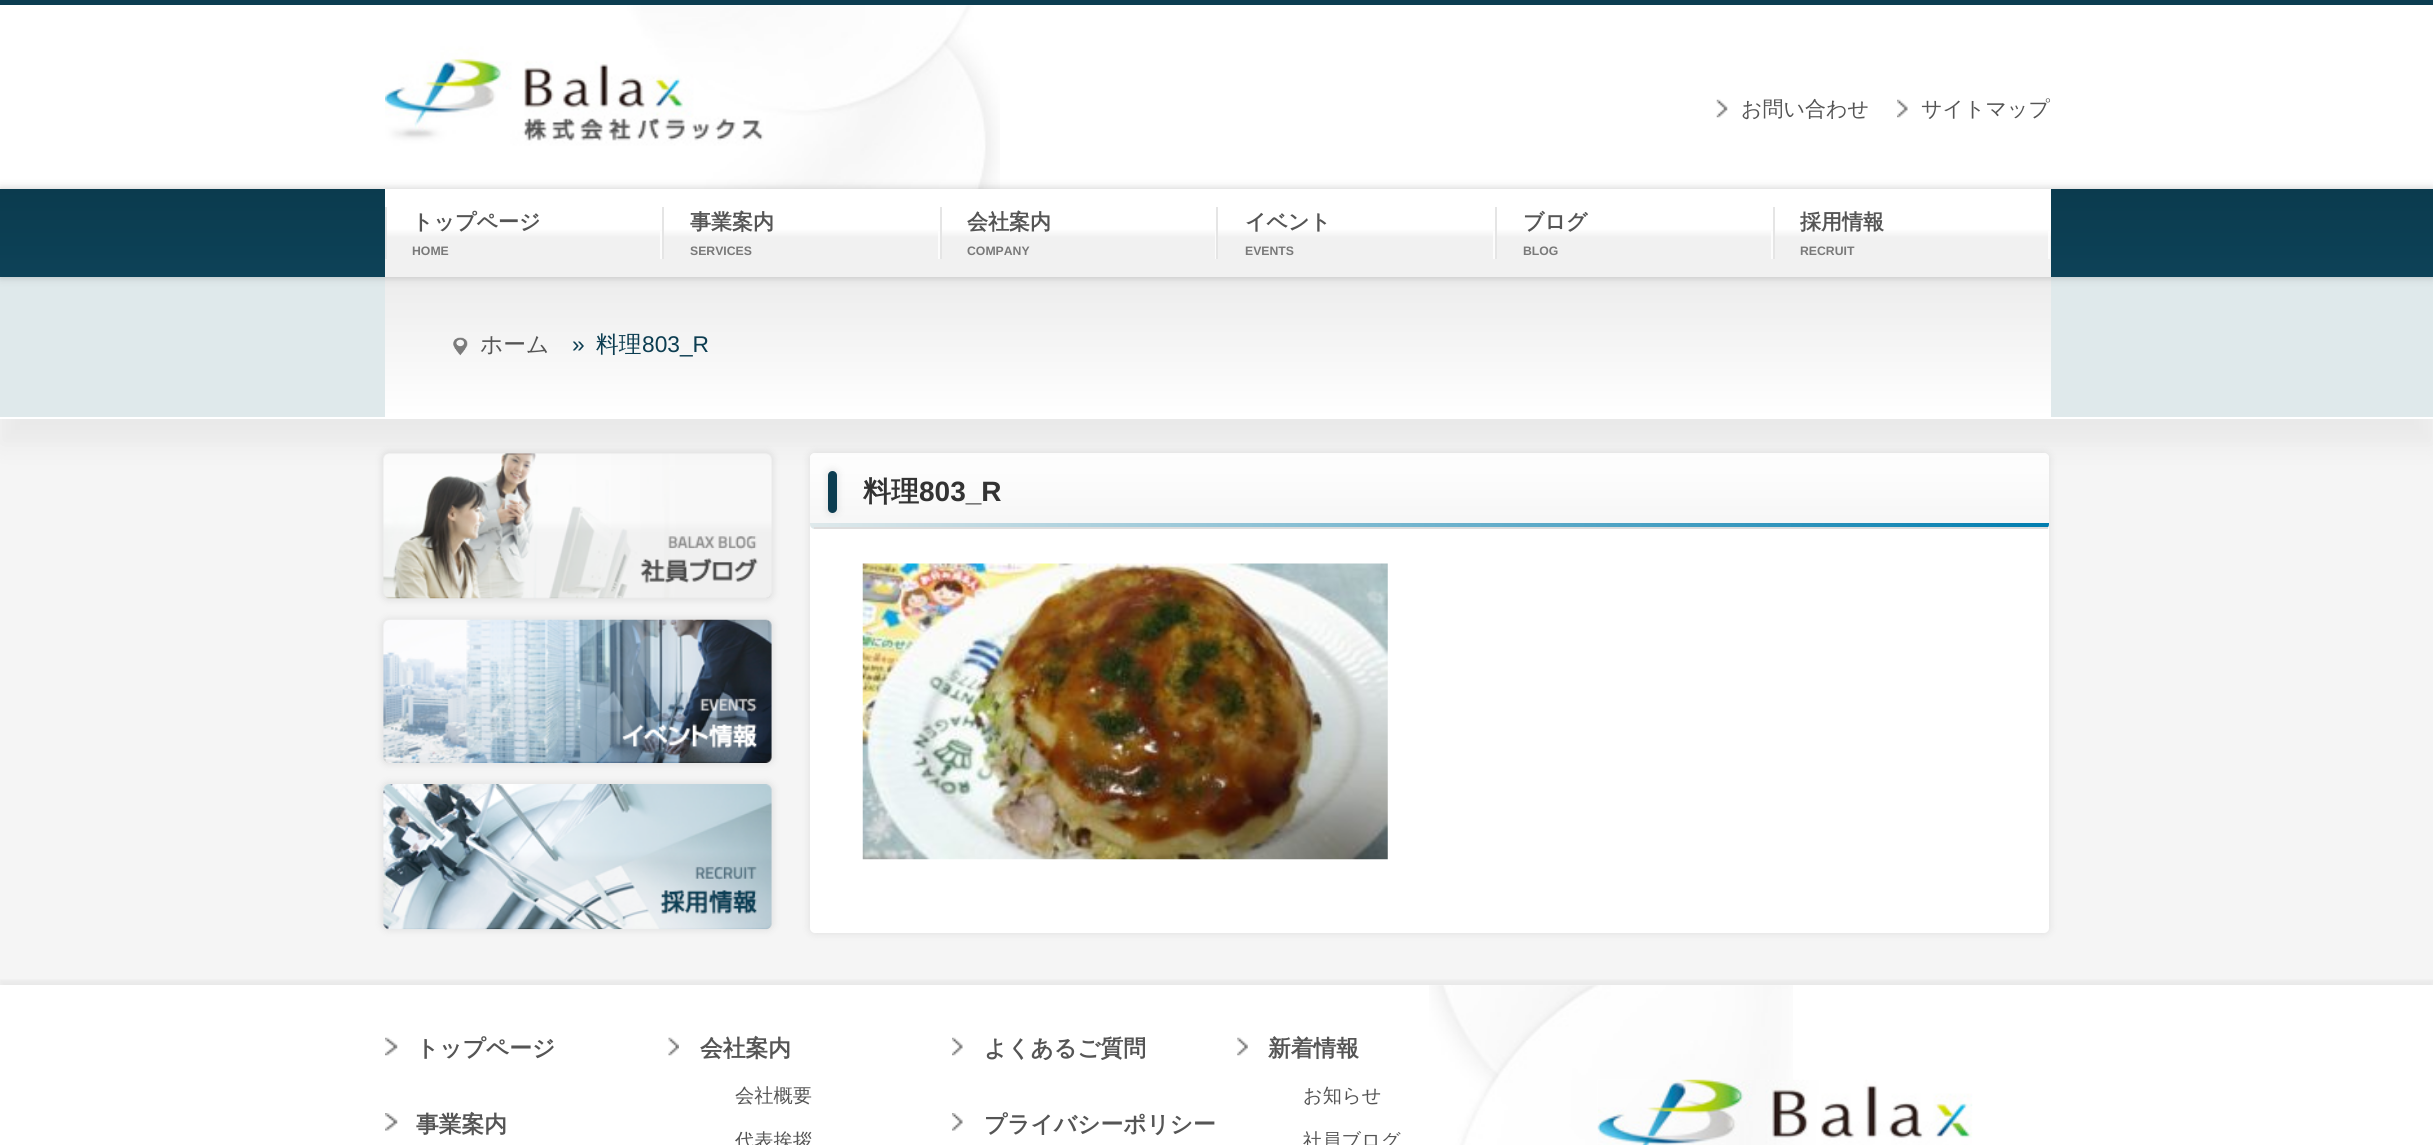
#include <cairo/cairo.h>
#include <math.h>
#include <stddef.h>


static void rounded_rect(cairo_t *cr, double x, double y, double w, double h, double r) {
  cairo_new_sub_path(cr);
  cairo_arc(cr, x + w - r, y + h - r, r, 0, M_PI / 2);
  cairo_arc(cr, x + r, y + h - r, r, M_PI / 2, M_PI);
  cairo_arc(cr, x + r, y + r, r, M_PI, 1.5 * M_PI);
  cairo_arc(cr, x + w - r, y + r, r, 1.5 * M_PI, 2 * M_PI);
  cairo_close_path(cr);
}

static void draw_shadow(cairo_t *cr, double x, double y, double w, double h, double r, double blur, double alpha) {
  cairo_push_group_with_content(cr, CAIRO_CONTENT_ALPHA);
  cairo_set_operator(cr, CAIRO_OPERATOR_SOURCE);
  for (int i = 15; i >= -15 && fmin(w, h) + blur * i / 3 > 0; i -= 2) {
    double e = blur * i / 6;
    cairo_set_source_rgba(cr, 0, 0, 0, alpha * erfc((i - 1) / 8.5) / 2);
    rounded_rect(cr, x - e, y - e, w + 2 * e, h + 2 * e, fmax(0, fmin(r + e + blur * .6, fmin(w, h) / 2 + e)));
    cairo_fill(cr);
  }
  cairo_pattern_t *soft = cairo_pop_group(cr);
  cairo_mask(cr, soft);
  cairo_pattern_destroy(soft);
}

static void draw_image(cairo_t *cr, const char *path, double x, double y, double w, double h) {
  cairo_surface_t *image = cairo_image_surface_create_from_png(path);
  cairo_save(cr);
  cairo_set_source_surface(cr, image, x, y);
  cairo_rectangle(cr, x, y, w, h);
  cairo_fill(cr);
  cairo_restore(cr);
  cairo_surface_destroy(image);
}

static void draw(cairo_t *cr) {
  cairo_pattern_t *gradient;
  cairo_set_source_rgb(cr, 1, 1, 1);
  cairo_paint(cr);
  cairo_set_source_rgb(cr, 12 / 255.0, 61 / 255.0, 81 / 255.0);
  cairo_rectangle(cr, 0, 0, 2433, 5);
  cairo_fill(cr);
  draw_image(cr, "images/1.png", 385, 5, 615, 184);
  draw_image(cr, "images/2.png", 1716, 99, 12, 19);
  draw_image(cr, "images/3.png", 1897, 99, 11, 19);
  cairo_set_source_rgb(cr, 245 / 255.0, 245 / 255.0, 245 / 255.0);
  cairo_rectangle(cr, 0, 419, 2433, 566);
  cairo_fill(cr);
  cairo_set_source_rgb(cr, 0, 0, 0);
  draw_shadow(cr, 383, 453, 389, 146, 5, 4.5, 0.11);
  draw_image(cr, "images/5.png", 383, 453, 389, 146);
  draw_shadow(cr, 810, 453, 1239, 480, 5, 4.5, 0.1);
  cairo_set_source_rgb(cr, 1, 1, 1);
  rounded_rect(cr, 810, 453, 1239, 480, 5);
  cairo_fill(cr);
  cairo_save(cr);
  rounded_rect(cr, 810, 453, 1239, 76, 5);
  cairo_clip(cr);
  gradient = cairo_pattern_create_linear(1430, 453, 1430, 527);
  cairo_pattern_add_color_stop_rgba(gradient, 0, 1, 1, 1, 1);
  cairo_pattern_add_color_stop_rgba(gradient, 1, 246 / 255.0, 246 / 255.0, 246 / 255.0, 1);
  cairo_set_source(cr, gradient);
  cairo_pattern_destroy(gradient);
  cairo_new_path(cr);
  cairo_move_to(cr, 815, 453);
  cairo_line_to(cr, 2044, 453);
  cairo_curve_to(cr, 2047, 453, 2049, 455, 2049, 458);
  cairo_line_to(cr, 2049, 527);
  cairo_line_to(cr, 810, 527);
  cairo_line_to(cr, 810, 458);
  cairo_curve_to(cr, 810, 455, 812, 453, 815, 453);
  cairo_close_path(cr);
  cairo_fill(cr);
  cairo_restore(cr);
  gradient = cairo_pattern_create_linear(810, 532, 2049, 532);
  cairo_pattern_add_color_stop_rgba(gradient, 0, 223 / 255.0, 233 / 255.0, 235 / 255.0, 1);
  cairo_pattern_add_color_stop_rgba(gradient, 1, 0, 125 / 255.0, 175 / 255.0, 1);
  cairo_set_source(cr, gradient);
  cairo_pattern_destroy(gradient);
  cairo_new_path(cr);
  cairo_move_to(cr, 810, 523);
  cairo_line_to(cr, 2049, 523);
  cairo_line_to(cr, 2049, 524);
  cairo_curve_to(cr, 2049, 527, 2047, 529, 2044, 529);
  cairo_line_to(cr, 815, 529);
  cairo_curve_to(cr, 812, 529, 810, 527, 810, 524);
  cairo_close_path(cr);
  cairo_fill(cr);
  cairo_set_source_rgb(cr, 221 / 255.0, 221 / 255.0, 221 / 255.0);
  cairo_rectangle(cr, 814, 527, 1234, 2);
  cairo_fill(cr);
  cairo_set_source_rgb(cr, 0, 0, 0);
  draw_shadow(cr, 828, 471, 9, 42, 4.5, 4.5, 0.11);
  cairo_set_source_rgb(cr, 12 / 255.0, 61 / 255.0, 81 / 255.0);
  rounded_rect(cr, 828, 471, 9, 42, 4.5);
  cairo_fill(cr);
  cairo_set_source_rgb(cr, 0, 0, 0);
  draw_shadow(cr, 0, 303, 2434, 142, 0, 13, 0.05);
  cairo_set_source_rgb(cr, 223 / 255.0, 233 / 255.0, 235 / 255.0);
  cairo_rectangle(cr, 0, 277, 2433, 140);
  cairo_fill(cr);
  gradient = cairo_pattern_create_linear(1218, 417, 1218, 277);
  cairo_pattern_add_color_stop_rgba(gradient, 0, 1, 1, 1, 1);
  cairo_pattern_add_color_stop_rgba(gradient, 1, 236 / 255.0, 236 / 255.0, 236 / 255.0, 1);
  cairo_set_source(cr, gradient);
  cairo_pattern_destroy(gradient);
  cairo_rectangle(cr, 385, 277, 1666, 140);
  cairo_fill(cr);
  cairo_set_source_rgb(cr, 0, 0, 0);
  draw_shadow(cr, 0, 189, 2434, 88, 0, 4.5, 0.21);
  gradient = cairo_pattern_create_linear(1217, 277, 1217, 189);
  cairo_pattern_add_color_stop_rgba(gradient, 0, 13 / 255.0, 66 / 255.0, 88 / 255.0, 1);
  cairo_pattern_add_color_stop_rgba(gradient, 1, 11 / 255.0, 59 / 255.0, 78 / 255.0, 1);
  cairo_set_source(cr, gradient);
  cairo_pattern_destroy(gradient);
  cairo_rectangle(cr, 0, 189, 2433, 88);
  cairo_fill(cr);
  gradient = cairo_pattern_create_linear(1218, 277, 1218, 189);
  cairo_pattern_add_color_stop_rgba(gradient, 0.45, 241 / 255.0, 241 / 255.0, 241 / 255.0, 1);
  cairo_pattern_add_color_stop_rgba(gradient, 0.55, 1, 1, 1, 1);
  cairo_set_source(cr, gradient);
  cairo_pattern_destroy(gradient);
  cairo_rectangle(cr, 385, 189, 1666, 88);
  cairo_fill(cr);
  gradient = cairo_pattern_create_linear(1218, 277, 1218, 189);
  cairo_pattern_add_color_stop_rgba(gradient, 0.45, 252 / 255.0, 252 / 255.0, 252 / 255.0, 1);
  cairo_pattern_add_color_stop_rgba(gradient, 0.55, 1, 1, 1, 1);
  cairo_set_source(cr, gradient);
  cairo_pattern_destroy(gradient);
  cairo_rectangle(cr, 2048, 231, 2, 28);
  cairo_fill(cr);
  cairo_rectangle(cr, 1771, 231, 2, 28);
  cairo_fill(cr);
  cairo_rectangle(cr, 1493, 231, 2, 28);
  cairo_fill(cr);
  cairo_rectangle(cr, 1215, 231, 1, 28);
  cairo_fill(cr);
  cairo_rectangle(cr, 938, 231, 2, 28);
  cairo_fill(cr);
  cairo_rectangle(cr, 660, 231, 2, 28);
  cairo_fill(cr);
  cairo_set_source_rgb(cr, 229 / 255.0, 229 / 255.0, 229 / 255.0);
  cairo_rectangle(cr, 385, 207, 2, 52);
  cairo_fill(cr);
  cairo_rectangle(cr, 662, 207, 2, 52);
  cairo_fill(cr);
  cairo_rectangle(cr, 940, 207, 2, 52);
  cairo_fill(cr);
  cairo_rectangle(cr, 1216, 207, 2, 52);
  cairo_fill(cr);
  cairo_rectangle(cr, 1495, 207, 2, 52);
  cairo_fill(cr);
  cairo_rectangle(cr, 1773, 207, 2, 52);
  cairo_fill(cr);
  cairo_set_source_rgb(cr, 1, 1, 1);
  cairo_rectangle(cr, 0, 417, 2433, 2);
  cairo_fill(cr);
  draw_image(cr, "images/4.png", 453, 337, 15, 19);
  cairo_set_source_rgb(cr, 0, 0, 0);
  draw_shadow(cr, 383, 620, 389, 143, 5, 4.5, 0.11);
  draw_image(cr, "images/6.png", 383, 619, 389, 144);
  draw_shadow(cr, 383, 784, 389, 145, 5, 4.5, 0.11);
  draw_image(cr, "images/7.png", 383, 784, 389, 146);
  draw_image(cr, "images/8.png", 862, 563, 526, 297);
  cairo_save(cr);
  cairo_rectangle(cr, 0, 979, 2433, 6);
  cairo_clip(cr);
  draw_shadow(cr, 0, 980, 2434, 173, 0, 2.5, 0.05);
  cairo_restore(cr);
  draw_image(cr, "images/9.png", 1429, 985, 364, 160);
  draw_image(cr, "images/10.png", 385, 1037, 13, 19);
  draw_image(cr, "images/11.png", 385, 1113, 13, 18);
  draw_image(cr, "images/12.png", 668, 1037, 11, 19);
  draw_image(cr, "images/13.png", 952, 1037, 11, 19);
  draw_image(cr, "images/14.png", 952, 1113, 11, 18);
  draw_image(cr, "images/15.png", 1237, 1037, 11, 19);
  draw_image(cr, "images/16.png", 1597, 1079, 376, 66);
  cairo_select_font_face(cr, "WenQuanYi Zen Hei Medium", CAIRO_FONT_SLANT_NORMAL, CAIRO_FONT_WEIGHT_NORMAL);
  cairo_set_font_size(cr, 21);
  cairo_set_source_rgb(cr, 85 / 255.0, 85 / 255.0, 85 / 255.0);
  cairo_move_to(cr, 1741, 116);
  cairo_show_text(cr, "お問い合わせ");
  cairo_move_to(cr, 1921, 116);
  cairo_show_text(cr, "サイトマップ");
  cairo_select_font_face(cr, "WenQuanYi Zen Hei", CAIRO_FONT_SLANT_NORMAL, CAIRO_FONT_WEIGHT_BOLD);
  cairo_move_to(cr, 412, 229);
  cairo_show_text(cr, "トップページ");
  cairo_select_font_face(cr, "Liberation Sans", CAIRO_FONT_SLANT_NORMAL, CAIRO_FONT_WEIGHT_BOLD);
  cairo_set_font_size(cr, 12.25);
  cairo_set_source_rgb(cr, 121 / 255.0, 121 / 255.0, 121 / 255.0);
  cairo_move_to(cr, 412, 255);
  cairo_show_text(cr, "HOME");
  cairo_select_font_face(cr, "WenQuanYi Zen Hei", CAIRO_FONT_SLANT_NORMAL, CAIRO_FONT_WEIGHT_BOLD);
  cairo_set_font_size(cr, 21);
  cairo_set_source_rgb(cr, 85 / 255.0, 85 / 255.0, 85 / 255.0);
  cairo_move_to(cr, 690, 229);
  cairo_show_text(cr, "事業案内");
  cairo_select_font_face(cr, "Liberation Sans", CAIRO_FONT_SLANT_NORMAL, CAIRO_FONT_WEIGHT_BOLD);
  cairo_set_font_size(cr, 12.25);
  cairo_set_source_rgb(cr, 121 / 255.0, 121 / 255.0, 121 / 255.0);
  cairo_move_to(cr, 690, 255);
  cairo_show_text(cr, "SERVICES");
  cairo_select_font_face(cr, "WenQuanYi Zen Hei", CAIRO_FONT_SLANT_NORMAL, CAIRO_FONT_WEIGHT_BOLD);
  cairo_set_font_size(cr, 21);
  cairo_set_source_rgb(cr, 85 / 255.0, 85 / 255.0, 85 / 255.0);
  cairo_move_to(cr, 967, 229);
  cairo_show_text(cr, "会社案内");
  cairo_select_font_face(cr, "Liberation Sans", CAIRO_FONT_SLANT_NORMAL, CAIRO_FONT_WEIGHT_BOLD);
  cairo_set_font_size(cr, 12.25);
  cairo_set_source_rgb(cr, 121 / 255.0, 121 / 255.0, 121 / 255.0);
  cairo_move_to(cr, 967, 255);
  cairo_show_text(cr, "COMPANY");
  cairo_select_font_face(cr, "WenQuanYi Zen Hei", CAIRO_FONT_SLANT_NORMAL, CAIRO_FONT_WEIGHT_BOLD);
  cairo_set_font_size(cr, 21);
  cairo_set_source_rgb(cr, 85 / 255.0, 85 / 255.0, 85 / 255.0);
  cairo_move_to(cr, 1245, 229);
  cairo_show_text(cr, "イベント");
  cairo_select_font_face(cr, "Liberation Sans", CAIRO_FONT_SLANT_NORMAL, CAIRO_FONT_WEIGHT_BOLD);
  cairo_set_font_size(cr, 12.25);
  cairo_set_source_rgb(cr, 121 / 255.0, 121 / 255.0, 121 / 255.0);
  cairo_move_to(cr, 1245, 255);
  cairo_show_text(cr, "EVENTS");
  cairo_select_font_face(cr, "WenQuanYi Zen Hei", CAIRO_FONT_SLANT_NORMAL, CAIRO_FONT_WEIGHT_BOLD);
  cairo_set_font_size(cr, 21);
  cairo_set_source_rgb(cr, 85 / 255.0, 85 / 255.0, 85 / 255.0);
  cairo_move_to(cr, 1523, 229);
  cairo_show_text(cr, "ブログ");
  cairo_select_font_face(cr, "Liberation Sans", CAIRO_FONT_SLANT_NORMAL, CAIRO_FONT_WEIGHT_BOLD);
  cairo_set_font_size(cr, 12.25);
  cairo_set_source_rgb(cr, 121 / 255.0, 121 / 255.0, 121 / 255.0);
  cairo_move_to(cr, 1523, 255);
  cairo_show_text(cr, "BLOG");
  cairo_select_font_face(cr, "WenQuanYi Zen Hei", CAIRO_FONT_SLANT_NORMAL, CAIRO_FONT_WEIGHT_BOLD);
  cairo_set_font_size(cr, 21);
  cairo_set_source_rgb(cr, 85 / 255.0, 85 / 255.0, 85 / 255.0);
  cairo_move_to(cr, 1800, 229);
  cairo_show_text(cr, "採用情報");
  cairo_select_font_face(cr, "Liberation Sans", CAIRO_FONT_SLANT_NORMAL, CAIRO_FONT_WEIGHT_BOLD);
  cairo_set_font_size(cr, 12.25);
  cairo_set_source_rgb(cr, 121 / 255.0, 121 / 255.0, 121 / 255.0);
  cairo_move_to(cr, 1800, 255);
  cairo_show_text(cr, "RECRUIT");
  cairo_select_font_face(cr, "WenQuanYi Zen Hei Medium", CAIRO_FONT_SLANT_NORMAL, CAIRO_FONT_WEIGHT_NORMAL);
  cairo_set_font_size(cr, 22.75);
  cairo_set_source_rgb(cr, 85 / 255.0, 85 / 255.0, 85 / 255.0);
  cairo_move_to(cr, 480, 352);
  cairo_show_text(cr, "ホーム");
  cairo_select_font_face(cr, "Liberation Sans", CAIRO_FONT_SLANT_NORMAL, CAIRO_FONT_WEIGHT_NORMAL);
  cairo_set_source_rgb(cr, 12 / 255.0, 61 / 255.0, 81 / 255.0);
  cairo_move_to(cr, 572, 352);
  cairo_show_text(cr, "»");
  cairo_select_font_face(cr, "WenQuanYi Zen Hei Medium", CAIRO_FONT_SLANT_NORMAL, CAIRO_FONT_WEIGHT_NORMAL);
  cairo_move_to(cr, 596, 352);
  cairo_show_text(cr, "料理");
  cairo_select_font_face(cr, "Liberation Sans", CAIRO_FONT_SLANT_NORMAL, CAIRO_FONT_WEIGHT_NORMAL);
  cairo_move_to(cr, 642, 352);
  cairo_show_text(cr, "803_R");
  cairo_select_font_face(cr, "WenQuanYi Zen Hei", CAIRO_FONT_SLANT_NORMAL, CAIRO_FONT_WEIGHT_BOLD);
  cairo_set_font_size(cr, 28);
  cairo_set_source_rgb(cr, 51 / 255.0, 51 / 255.0, 51 / 255.0);
  cairo_move_to(cr, 863, 501);
  cairo_show_text(cr, "料理");
  cairo_select_font_face(cr, "Liberation Sans", CAIRO_FONT_SLANT_NORMAL, CAIRO_FONT_WEIGHT_BOLD);
  cairo_move_to(cr, 919, 501);
  cairo_show_text(cr, "803_R");
  cairo_select_font_face(cr, "WenQuanYi Zen Hei", CAIRO_FONT_SLANT_NORMAL, CAIRO_FONT_WEIGHT_BOLD);
  cairo_set_font_size(cr, 22.75);
  cairo_set_source_rgb(cr, 85 / 255.0, 85 / 255.0, 85 / 255.0);
  cairo_move_to(cr, 416, 1056);
  cairo_show_text(cr, "トップページ");
  cairo_move_to(cr, 416, 1132);
  cairo_show_text(cr, "事業案内");
  cairo_move_to(cr, 700, 1056);
  cairo_show_text(cr, "会社案内");
  cairo_select_font_face(cr, "WenQuanYi Zen Hei Medium", CAIRO_FONT_SLANT_NORMAL, CAIRO_FONT_WEIGHT_NORMAL);
  cairo_set_font_size(cr, 19.25);
  cairo_move_to(cr, 735, 1102);
  cairo_show_text(cr, "会社概要");
  cairo_move_to(cr, 735, 1147);
  cairo_show_text(cr, "代表挨拶");
  cairo_select_font_face(cr, "WenQuanYi Zen Hei", CAIRO_FONT_SLANT_NORMAL, CAIRO_FONT_WEIGHT_BOLD);
  cairo_set_font_size(cr, 22.75);
  cairo_move_to(cr, 984, 1056);
  cairo_show_text(cr, "よくあるご質問");
  cairo_move_to(cr, 984, 1132);
  cairo_show_text(cr, "プライバシーポリシー");
  cairo_move_to(cr, 1268, 1056);
  cairo_show_text(cr, "新着情報");
  cairo_select_font_face(cr, "WenQuanYi Zen Hei Medium", CAIRO_FONT_SLANT_NORMAL, CAIRO_FONT_WEIGHT_NORMAL);
  cairo_set_font_size(cr, 19.25);
  cairo_move_to(cr, 1303, 1102);
  cairo_show_text(cr, "お知らせ");
  cairo_move_to(cr, 1303, 1147);
  cairo_show_text(cr, "社員ブログ");
}

int main(void) {
  cairo_surface_t *surface = cairo_image_surface_create(CAIRO_FORMAT_RGB24, 2433, 1145);
  cairo_t *cr = cairo_create(surface);
  cairo_font_options_t *options = cairo_font_options_create();
  cairo_font_options_set_hint_metrics(options, CAIRO_HINT_METRICS_OFF);
  cairo_font_options_set_hint_style(options, CAIRO_HINT_STYLE_NONE);
  cairo_set_font_options(cr, options);
  cairo_set_miter_limit(cr, 4);
  draw(cr);
  cairo_surface_write_to_png(surface, "out.png");
  cairo_font_options_destroy(options);
  cairo_destroy(cr);
  cairo_surface_destroy(surface);
  return 0;
}
